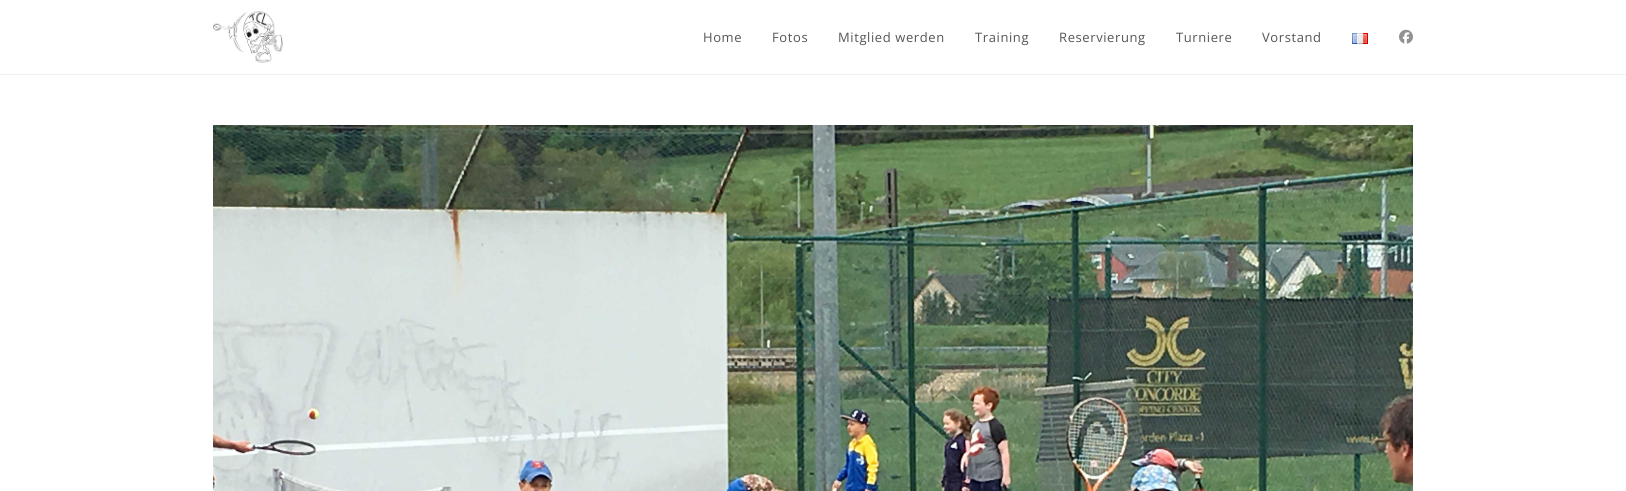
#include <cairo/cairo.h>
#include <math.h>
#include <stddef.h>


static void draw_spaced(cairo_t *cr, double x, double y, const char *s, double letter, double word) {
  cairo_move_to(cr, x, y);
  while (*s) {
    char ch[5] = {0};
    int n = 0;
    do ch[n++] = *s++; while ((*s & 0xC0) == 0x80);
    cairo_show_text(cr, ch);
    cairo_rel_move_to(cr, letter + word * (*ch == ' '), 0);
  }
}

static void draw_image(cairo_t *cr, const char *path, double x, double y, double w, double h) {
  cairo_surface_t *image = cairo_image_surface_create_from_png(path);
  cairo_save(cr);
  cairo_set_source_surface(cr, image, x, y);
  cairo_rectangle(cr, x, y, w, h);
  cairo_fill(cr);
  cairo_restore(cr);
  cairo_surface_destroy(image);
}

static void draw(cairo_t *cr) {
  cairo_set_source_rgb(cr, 1, 1, 1);
  cairo_paint(cr);
  cairo_set_source_rgb(cr, 241 / 255.0, 241 / 255.0, 241 / 255.0);
  cairo_rectangle(cr, 0, 74, 1626, 1);
  cairo_fill(cr);
  draw_image(cr, "images/1.png", 213, 11, 70, 52);
  draw_image(cr, "images/2.png", 1352, 33, 16, 11);
  draw_image(cr, "images/3.png", 1399, 29, 14, 15);
  draw_image(cr, "images/4.png", 213, 125, 1200, 366);
  cairo_select_font_face(cr, "Open Sans", CAIRO_FONT_SLANT_NORMAL, CAIRO_FONT_WEIGHT_NORMAL);
  cairo_set_font_size(cr, 13);
  cairo_set_source_rgb(cr, 85 / 255.0, 85 / 255.0, 85 / 255.0);
  draw_spaced(cr, 703, 42, "Home", 0.6, 0);
  draw_spaced(cr, 772, 42, "Fotos", 0.6, 0);
  draw_spaced(cr, 838, 42, "Mitglied werden", 0.6, 0);
  draw_spaced(cr, 975, 42, "Training", 0.6, 0);
  draw_spaced(cr, 1059, 42, "Reservierung", 0.6, 0);
  draw_spaced(cr, 1176, 42, "Turniere", 0.6, 0);
  draw_spaced(cr, 1262, 42, "Vorstand", 0.6, 0);
}

int main(void) {
  cairo_surface_t *surface = cairo_image_surface_create(CAIRO_FORMAT_RGB24, 1626, 491);
  cairo_t *cr = cairo_create(surface);
  cairo_font_options_t *options = cairo_font_options_create();
  cairo_font_options_set_hint_metrics(options, CAIRO_HINT_METRICS_OFF);
  cairo_font_options_set_hint_style(options, CAIRO_HINT_STYLE_NONE);
  cairo_set_font_options(cr, options);
  cairo_set_miter_limit(cr, 4);
  draw(cr);
  cairo_surface_write_to_png(surface, "out.png");
  cairo_font_options_destroy(options);
  cairo_destroy(cr);
  cairo_surface_destroy(surface);
  return 0;
}
